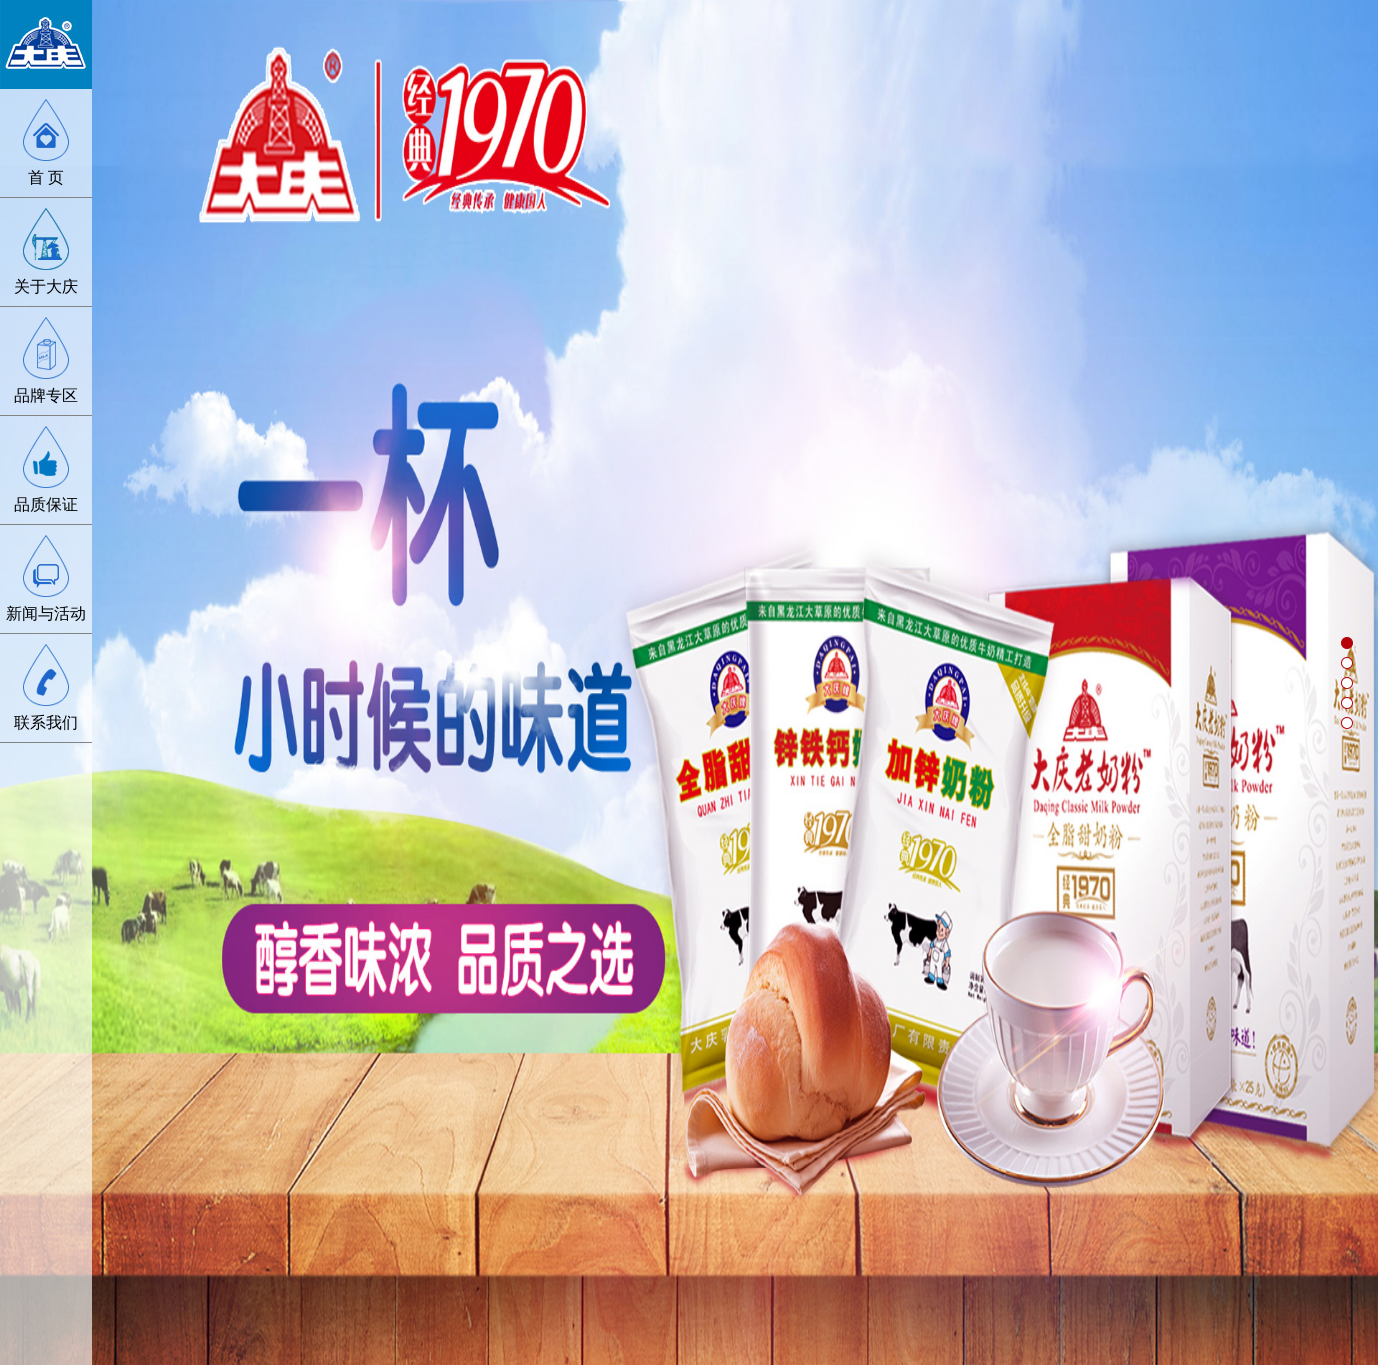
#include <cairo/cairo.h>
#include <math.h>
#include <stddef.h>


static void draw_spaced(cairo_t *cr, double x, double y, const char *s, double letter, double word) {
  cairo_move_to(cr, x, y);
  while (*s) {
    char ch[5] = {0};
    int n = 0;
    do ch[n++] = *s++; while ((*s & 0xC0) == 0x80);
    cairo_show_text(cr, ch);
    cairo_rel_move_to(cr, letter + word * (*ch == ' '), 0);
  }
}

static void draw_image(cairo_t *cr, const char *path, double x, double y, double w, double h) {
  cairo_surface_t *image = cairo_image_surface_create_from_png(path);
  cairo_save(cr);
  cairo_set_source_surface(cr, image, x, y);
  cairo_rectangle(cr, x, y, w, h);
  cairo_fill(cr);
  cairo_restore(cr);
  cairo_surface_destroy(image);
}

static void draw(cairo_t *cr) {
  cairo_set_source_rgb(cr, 1, 1, 1);
  cairo_paint(cr);
  draw_image(cr, "images/1.png", 0, 0, 1378, 1365);
  cairo_set_source_rgba(cr, 1, 1, 1, 0.65);
  cairo_rectangle(cr, 0, 89, 92, 1276);
  cairo_fill(cr);
  draw_image(cr, "images/2.png", 0, 0, 92, 89);
  draw_image(cr, "images/3.png", 23, 99, 46, 62);
  cairo_set_source_rgb(cr, 131 / 255.0, 131 / 255.0, 131 / 255.0);
  cairo_rectangle(cr, 0, 197, 92, 1);
  cairo_fill(cr);
  draw_image(cr, "images/4.png", 23, 208, 46, 62);
  cairo_rectangle(cr, 0, 306, 92, 1);
  cairo_fill(cr);
  draw_image(cr, "images/5.png", 23, 317, 46, 62);
  cairo_rectangle(cr, 0, 415, 92, 1);
  cairo_fill(cr);
  draw_image(cr, "images/6.png", 23, 426, 46, 62);
  cairo_rectangle(cr, 0, 524, 92, 1);
  cairo_fill(cr);
  draw_image(cr, "images/7.png", 23, 535, 46, 62);
  cairo_rectangle(cr, 0, 633, 92, 1);
  cairo_fill(cr);
  draw_image(cr, "images/8.png", 23, 644, 46, 62);
  cairo_rectangle(cr, 0, 742, 92, 1);
  cairo_fill(cr);
  cairo_set_source_rgb(cr, 181 / 255.0, 0, 11 / 255.0);
  cairo_arc(cr, 1347, 643, 5.5, 0, 2 * M_PI);
  cairo_fill_preserve(cr);
  cairo_set_line_width(cr, 1);
  cairo_stroke(cr);
  cairo_set_source_rgb(cr, 1, 1, 1);
  cairo_arc(cr, 1347, 663, 5.5, 0, 2 * M_PI);
  cairo_fill_preserve(cr);
  cairo_set_source_rgb(cr, 181 / 255.0, 0, 11 / 255.0);
  cairo_stroke(cr);
  cairo_set_source_rgb(cr, 1, 1, 1);
  cairo_arc(cr, 1347, 683, 5.5, 0, 2 * M_PI);
  cairo_fill_preserve(cr);
  cairo_set_source_rgb(cr, 181 / 255.0, 0, 11 / 255.0);
  cairo_stroke(cr);
  cairo_set_source_rgb(cr, 1, 1, 1);
  cairo_arc(cr, 1347, 703, 5.5, 0, 2 * M_PI);
  cairo_fill_preserve(cr);
  cairo_set_source_rgb(cr, 181 / 255.0, 0, 11 / 255.0);
  cairo_stroke(cr);
  cairo_set_source_rgb(cr, 1, 1, 1);
  cairo_arc(cr, 1347, 723, 5.5, 0, 2 * M_PI);
  cairo_fill_preserve(cr);
  cairo_set_source_rgb(cr, 181 / 255.0, 0, 11 / 255.0);
  cairo_stroke(cr);
  cairo_select_font_face(cr, "WenQuanYi Zen Hei Medium", CAIRO_FONT_SLANT_NORMAL, CAIRO_FONT_WEIGHT_NORMAL);
  cairo_set_font_size(cr, 16);
  cairo_set_source_rgb(cr, 0, 0, 0);
  draw_spaced(cr, 28, 183, "首 页", 0, -1);
  cairo_move_to(cr, 14, 292);
  cairo_show_text(cr, "关于大庆");
  cairo_move_to(cr, 14, 401);
  cairo_show_text(cr, "品牌专区");
  cairo_move_to(cr, 14, 510);
  cairo_show_text(cr, "品质保证");
  cairo_move_to(cr, 6, 619);
  cairo_show_text(cr, "新闻与活动");
  cairo_move_to(cr, 14, 728);
  cairo_show_text(cr, "联系我们");
}

int main(void) {
  cairo_surface_t *surface = cairo_image_surface_create(CAIRO_FORMAT_RGB24, 1378, 1365);
  cairo_t *cr = cairo_create(surface);
  cairo_font_options_t *options = cairo_font_options_create();
  cairo_font_options_set_hint_metrics(options, CAIRO_HINT_METRICS_OFF);
  cairo_font_options_set_hint_style(options, CAIRO_HINT_STYLE_NONE);
  cairo_set_font_options(cr, options);
  cairo_set_miter_limit(cr, 4);
  draw(cr);
  cairo_surface_write_to_png(surface, "out.png");
  cairo_font_options_destroy(options);
  cairo_destroy(cr);
  cairo_surface_destroy(surface);
  return 0;
}
